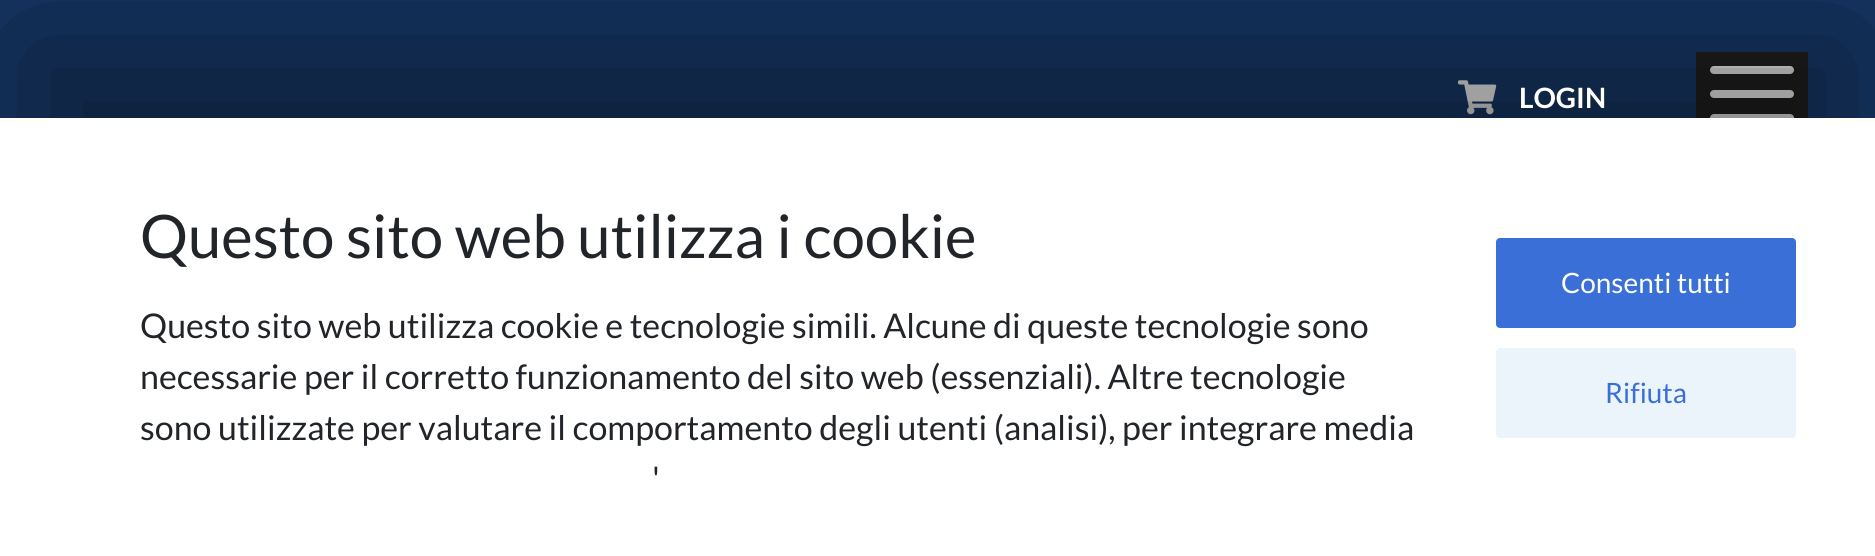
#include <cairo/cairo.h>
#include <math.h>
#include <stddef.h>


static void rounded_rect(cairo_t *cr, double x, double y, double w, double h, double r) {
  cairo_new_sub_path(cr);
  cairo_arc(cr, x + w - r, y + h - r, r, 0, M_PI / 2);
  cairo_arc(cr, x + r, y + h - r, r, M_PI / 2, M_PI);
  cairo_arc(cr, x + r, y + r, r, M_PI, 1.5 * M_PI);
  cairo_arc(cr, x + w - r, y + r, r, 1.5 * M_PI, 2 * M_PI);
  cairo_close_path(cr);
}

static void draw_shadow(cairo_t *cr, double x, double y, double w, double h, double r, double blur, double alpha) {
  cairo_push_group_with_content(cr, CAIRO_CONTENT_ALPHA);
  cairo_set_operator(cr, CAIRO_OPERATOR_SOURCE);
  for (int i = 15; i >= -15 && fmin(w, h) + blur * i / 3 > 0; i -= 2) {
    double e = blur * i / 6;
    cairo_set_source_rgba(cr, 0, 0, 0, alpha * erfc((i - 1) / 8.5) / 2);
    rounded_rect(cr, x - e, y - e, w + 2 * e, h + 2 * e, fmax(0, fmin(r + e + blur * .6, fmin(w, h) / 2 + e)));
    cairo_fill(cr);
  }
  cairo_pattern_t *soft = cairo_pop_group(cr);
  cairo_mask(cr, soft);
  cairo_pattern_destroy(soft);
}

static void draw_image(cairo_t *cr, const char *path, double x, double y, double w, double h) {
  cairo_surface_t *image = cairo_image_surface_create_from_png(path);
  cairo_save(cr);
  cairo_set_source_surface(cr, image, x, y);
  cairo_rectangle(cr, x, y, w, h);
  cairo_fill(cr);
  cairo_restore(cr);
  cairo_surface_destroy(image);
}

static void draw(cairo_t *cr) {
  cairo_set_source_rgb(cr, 24 / 255.0, 60 / 255.0, 111 / 255.0);
  cairo_paint(cr);
  draw_image(cr, "images/1.png", 1458, 80, 39, 35);
  cairo_set_source_rgb(cr, 34 / 255.0, 34 / 255.0, 34 / 255.0);
  cairo_rectangle(cr, 1696, 52, 112, 66);
  cairo_fill(cr);
  cairo_set_source_rgb(cr, 1, 1, 1);
  rounded_rect(cr, 1710, 66, 84, 8, 4);
  cairo_fill(cr);
  rounded_rect(cr, 1710, 90, 84, 8, 4);
  cairo_fill(cr);
  rounded_rect(cr, 1710, 114, 84, 8, 4);
  cairo_fill(cr);
  cairo_set_source_rgb(cr, 0, 0, 0);
  draw_shadow(cr, 0, 18, 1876, 438, 0, 100, 0.5);
  cairo_set_source_rgb(cr, 1, 1, 1);
  cairo_rectangle(cr, 0, 118, 1875, 438);
  cairo_fill(cr);
  cairo_set_source_rgb(cr, 57 / 255.0, 111 / 255.0, 215 / 255.0);
  rounded_rect(cr, 1496, 238, 300, 90, 4);
  cairo_fill(cr);
  cairo_set_source_rgb(cr, 235 / 255.0, 243 / 255.0, 251 / 255.0);
  rounded_rect(cr, 1496, 348, 300, 90, 4);
  cairo_fill(cr);
  cairo_select_font_face(cr, "Lato", CAIRO_FONT_SLANT_NORMAL, CAIRO_FONT_WEIGHT_BOLD);
  cairo_set_font_size(cr, 28);
  cairo_set_source_rgb(cr, 1, 1, 1);
  cairo_move_to(cr, 1519, 108);
  cairo_show_text(cr, "LOGIN");
  cairo_select_font_face(cr, "Lato", CAIRO_FONT_SLANT_NORMAL, CAIRO_FONT_WEIGHT_NORMAL);
  cairo_set_font_size(cr, 60);
  cairo_set_source_rgb(cr, 33 / 255.0, 37 / 255.0, 41 / 255.0);
  cairo_move_to(cr, 140, 258);
  cairo_show_text(cr, "Questo sito web utilizza i cookie");
  cairo_set_font_size(cr, 34);
  cairo_move_to(cr, 140, 338);
  cairo_show_text(cr, "Questo sito web utilizza cookie e tecnologie simili. Alcune di queste tecnologie sono");
  cairo_move_to(cr, 140, 389);
  cairo_show_text(cr, "necessarie per il corretto funzionamento del sito web (essenziali). Altre tecnologie");
  cairo_move_to(cr, 140, 440);
  cairo_show_text(cr, "sono utilizzate per valutare il comportamento degli utenti (analisi), per integrare media");
  cairo_move_to(cr, 652, 491);
  cairo_show_text(cr, "'");
  cairo_set_font_size(cr, 28);
  cairo_set_source_rgb(cr, 1, 1, 1);
  cairo_move_to(cr, 1561, 293);
  cairo_show_text(cr, "Consenti tutti");
  cairo_set_source_rgb(cr, 57 / 255.0, 111 / 255.0, 215 / 255.0);
  cairo_move_to(cr, 1605, 403);
  cairo_show_text(cr, "Rifiuta");
}

int main(void) {
  cairo_surface_t *surface = cairo_image_surface_create(CAIRO_FORMAT_RGB24, 1875, 556);
  cairo_t *cr = cairo_create(surface);
  cairo_font_options_t *options = cairo_font_options_create();
  cairo_font_options_set_hint_metrics(options, CAIRO_HINT_METRICS_OFF);
  cairo_font_options_set_hint_style(options, CAIRO_HINT_STYLE_NONE);
  cairo_set_font_options(cr, options);
  cairo_set_miter_limit(cr, 4);
  draw(cr);
  cairo_surface_write_to_png(surface, "out.png");
  cairo_font_options_destroy(options);
  cairo_destroy(cr);
  cairo_surface_destroy(surface);
  return 0;
}
